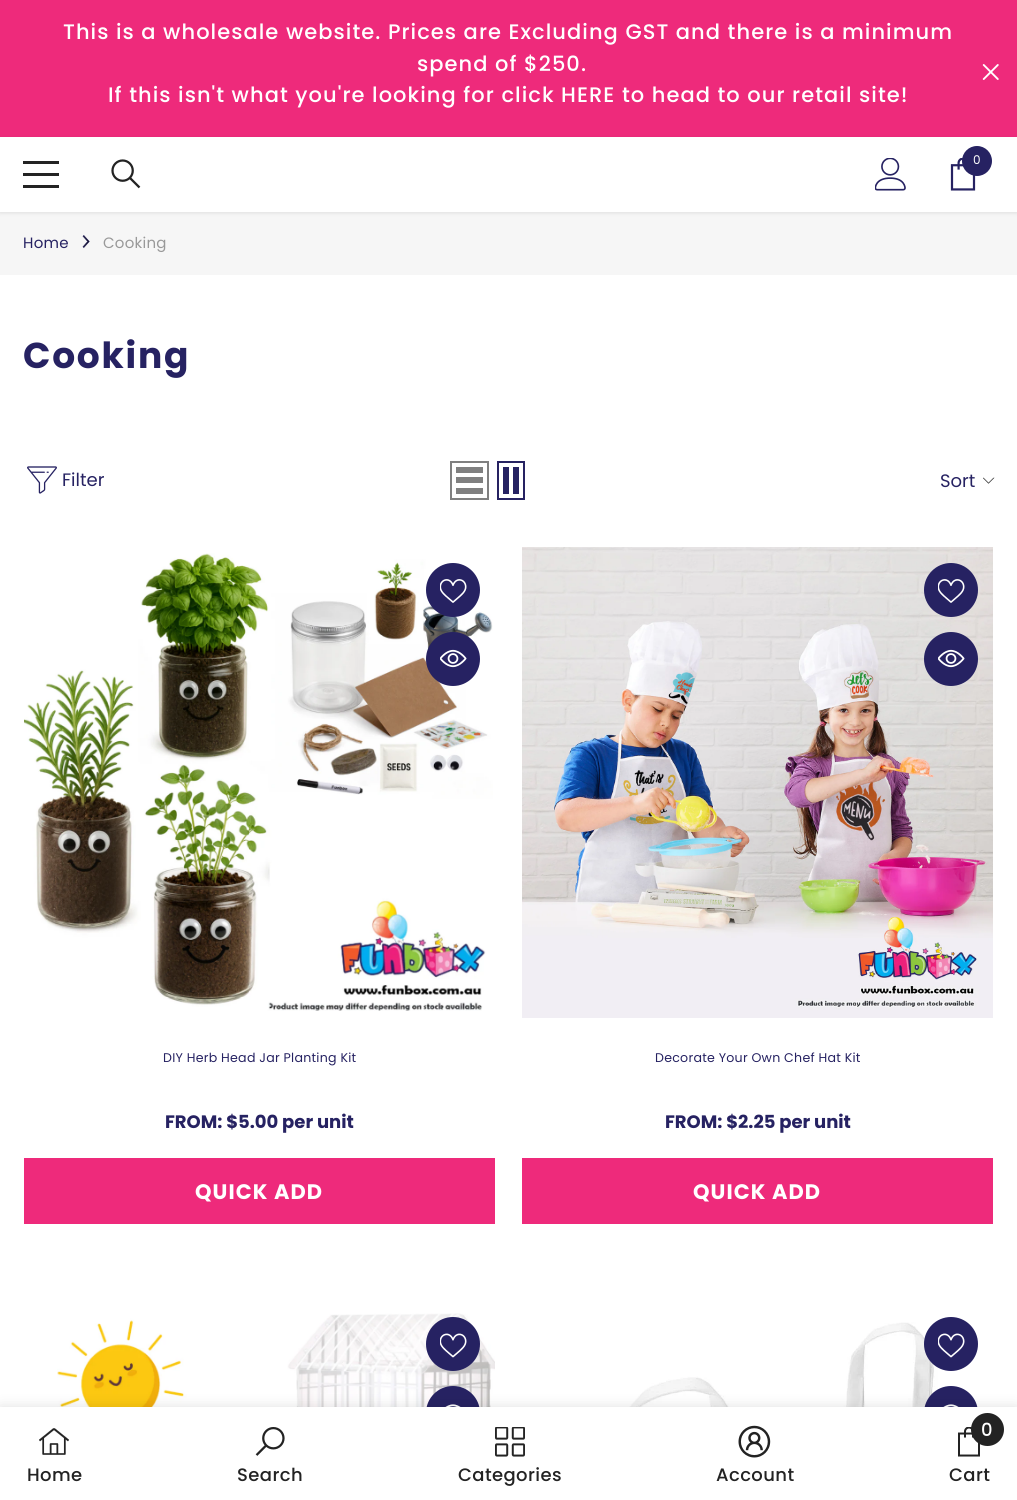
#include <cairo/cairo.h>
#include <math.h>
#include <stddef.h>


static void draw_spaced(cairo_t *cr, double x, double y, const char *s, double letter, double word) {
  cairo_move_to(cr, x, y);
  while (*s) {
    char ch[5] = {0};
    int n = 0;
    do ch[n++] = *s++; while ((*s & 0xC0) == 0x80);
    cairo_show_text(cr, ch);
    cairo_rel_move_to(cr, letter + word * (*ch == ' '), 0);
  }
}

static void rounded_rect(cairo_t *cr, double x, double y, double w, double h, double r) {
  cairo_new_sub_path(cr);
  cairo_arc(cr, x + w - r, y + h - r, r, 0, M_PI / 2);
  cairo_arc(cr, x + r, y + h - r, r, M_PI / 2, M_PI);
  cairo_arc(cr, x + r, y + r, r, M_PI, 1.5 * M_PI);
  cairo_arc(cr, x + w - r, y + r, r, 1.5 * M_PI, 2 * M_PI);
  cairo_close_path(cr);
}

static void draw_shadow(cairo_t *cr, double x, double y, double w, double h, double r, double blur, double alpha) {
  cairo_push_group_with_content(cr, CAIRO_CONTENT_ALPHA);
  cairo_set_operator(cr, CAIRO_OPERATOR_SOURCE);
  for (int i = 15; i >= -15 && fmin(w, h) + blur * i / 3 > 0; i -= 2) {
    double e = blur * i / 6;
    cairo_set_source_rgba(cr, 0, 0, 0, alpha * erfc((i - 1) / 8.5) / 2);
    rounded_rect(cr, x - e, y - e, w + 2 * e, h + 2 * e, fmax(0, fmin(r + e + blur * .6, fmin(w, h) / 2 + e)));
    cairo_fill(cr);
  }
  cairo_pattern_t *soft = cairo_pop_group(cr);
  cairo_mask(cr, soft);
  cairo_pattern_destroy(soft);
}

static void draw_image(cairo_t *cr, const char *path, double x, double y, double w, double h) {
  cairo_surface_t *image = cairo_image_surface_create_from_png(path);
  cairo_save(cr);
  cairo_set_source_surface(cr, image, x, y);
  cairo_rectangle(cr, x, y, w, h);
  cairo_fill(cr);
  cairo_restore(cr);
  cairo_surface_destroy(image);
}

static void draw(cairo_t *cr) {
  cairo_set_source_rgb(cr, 1, 1, 1);
  cairo_paint(cr);
  cairo_set_source_rgb(cr, 238 / 255.0, 42 / 255.0, 123 / 255.0);
  cairo_rectangle(cr, 0, 0, 1017, 137);
  cairo_fill(cr);
  draw_image(cr, "images/1.png", 982, 64, 17, 16);
  cairo_set_source_rgb(cr, 246 / 255.0, 246 / 255.0, 246 / 255.0);
  cairo_rectangle(cr, 0, 212, 1017, 63);
  cairo_fill(cr);
  cairo_set_source_rgb(cr, 0, 0, 0);
  draw_shadow(cr, 0, 138, 1017, 75, 0, 2, 0.1);
  cairo_set_source_rgb(cr, 1, 1, 1);
  cairo_rectangle(cr, 0, 137, 1017, 75);
  cairo_fill(cr);
  cairo_set_source_rgb(cr, 35 / 255.0, 35 / 255.0, 35 / 255.0);
  cairo_rectangle(cr, 23, 173, 36, 3);
  cairo_fill(cr);
  cairo_rectangle(cr, 23, 161, 36, 3);
  cairo_fill(cr);
  cairo_rectangle(cr, 23, 185, 36, 3);
  cairo_fill(cr);
  draw_image(cr, "images/2.png", 111, 159, 30, 30);
  draw_image(cr, "images/3.png", 875, 158, 31, 33);
  draw_image(cr, "images/4.png", 950, 158, 26, 33);
  cairo_set_source_rgb(cr, 38 / 255.0, 34 / 255.0, 98 / 255.0);
  cairo_arc(cr, 977, 161, 15, 0, 2 * M_PI);
  cairo_fill(cr);
  draw_image(cr, "images/5.png", 82, 235, 8, 13);
  draw_image(cr, "images/6.png", 27, 466, 30, 28);
  cairo_rectangle(cr, 451, 462, 37, 37);
  cairo_set_source_rgb(cr, 128 / 255.0, 128 / 255.0, 128 / 255.0);
  cairo_stroke(cr);
  cairo_rectangle(cr, 456, 488, 27, 6);
  cairo_fill(cr);
  cairo_rectangle(cr, 456, 477, 27, 6);
  cairo_fill(cr);
  cairo_rectangle(cr, 456, 467, 27, 6);
  cairo_fill(cr);
  cairo_rectangle(cr, 498, 462, 26, 37);
  cairo_set_source_rgb(cr, 38 / 255.0, 34 / 255.0, 98 / 255.0);
  cairo_stroke(cr);
  cairo_rectangle(cr, 513, 467, 6, 27);
  cairo_fill(cr);
  cairo_rectangle(cr, 503, 467, 6, 27);
  cairo_fill(cr);
  draw_image(cr, "images/7.png", 983, 477, 12, 7);
  draw_image(cr, "images/8.png", 24, 553, 469, 458);
  cairo_arc(cr, 453, 590, 26, 0, 2 * M_PI);
  cairo_fill_preserve(cr);
  cairo_stroke(cr);
  draw_image(cr, "images/9.png", 440, 579, 27, 24);
  cairo_arc(cr, 453, 659, 27, 0, 2 * M_PI);
  cairo_fill(cr);
  draw_image(cr, "images/10.png", 440, 649, 27, 19);
  cairo_set_source_rgb(cr, 238 / 255.0, 42 / 255.0, 123 / 255.0);
  cairo_rectangle(cr, 24, 1158, 471, 66);
  cairo_fill(cr);
  draw_image(cr, "images/11.png", 522, 547, 471, 471);
  cairo_set_source_rgb(cr, 38 / 255.0, 34 / 255.0, 98 / 255.0);
  cairo_arc(cr, 951, 590, 26, 0, 2 * M_PI);
  cairo_fill_preserve(cr);
  cairo_stroke(cr);
  draw_image(cr, "images/9.png", 938, 579, 27, 24);
  cairo_arc(cr, 951, 659, 27, 0, 2 * M_PI);
  cairo_fill(cr);
  draw_image(cr, "images/10.png", 938, 649, 27, 19);
  cairo_set_source_rgb(cr, 238 / 255.0, 42 / 255.0, 123 / 255.0);
  cairo_rectangle(cr, 522, 1158, 471, 66);
  cairo_fill(cr);
  draw_image(cr, "images/12.png", 57, 1313, 438, 94);
  cairo_set_source_rgb(cr, 38 / 255.0, 34 / 255.0, 98 / 255.0);
  cairo_arc(cr, 453, 1344, 26, 0, 2 * M_PI);
  cairo_fill_preserve(cr);
  cairo_stroke(cr);
  draw_image(cr, "images/13.png", 440, 1333, 27, 25);
  cairo_arc(cr, 453, 1413, 27, 0, 2 * M_PI);
  cairo_fill(cr);
  draw_image(cr, "images/14.png", 445, 1404, 16, 3);
  draw_image(cr, "images/15.png", 606, 1322, 356, 85);
  cairo_arc(cr, 951, 1344, 26, 0, 2 * M_PI);
  cairo_fill_preserve(cr);
  cairo_stroke(cr);
  draw_image(cr, "images/13.png", 938, 1333, 27, 25);
  cairo_arc(cr, 951, 1413, 27, 0, 2 * M_PI);
  cairo_fill(cr);
  draw_image(cr, "images/14.png", 943, 1404, 16, 3);
  cairo_set_source_rgb(cr, 0, 0, 0);
  draw_shadow(cr, 0, 1407, 1017, 93, 0, 7, 0.12);
  cairo_set_source_rgb(cr, 1, 1, 1);
  cairo_rectangle(cr, 0, 1407, 1017, 93);
  cairo_fill(cr);
  draw_image(cr, "images/16.png", 39, 1428, 30, 27);
  draw_image(cr, "images/17.png", 255, 1427, 30, 29);
  draw_image(cr, "images/18.png", 495, 1427, 30, 30);
  draw_image(cr, "images/19.png", 738, 1425, 33, 33);
  draw_image(cr, "images/20.png", 958, 1427, 22, 30);
  cairo_set_source_rgb(cr, 35 / 255.0, 35 / 255.0, 35 / 255.0);
  cairo_arc(cr, 987.5, 1429.5, 16.5, 0, 2 * M_PI);
  cairo_fill(cr);
  cairo_select_font_face(cr, "Poppins Medium", CAIRO_FONT_SLANT_NORMAL, CAIRO_FONT_WEIGHT_NORMAL);
  cairo_set_font_size(cr, 21);
  cairo_set_source_rgb(cr, 1, 1, 1);
  draw_spaced(cr, 63, 39, "This is a wholesale website. Prices are Excluding GST and there is a minimum", 1.05, 0);
  draw_spaced(cr, 417, 71, "spend of $250.", 1.05, 0);
  draw_spaced(cr, 108, 102, "If this isn't what you're looking for click HERE to head to our retail site!", 1.05, 0);
  cairo_select_font_face(cr, "Poppins", CAIRO_FONT_SLANT_NORMAL, CAIRO_FONT_WEIGHT_NORMAL);
  cairo_set_font_size(cr, 12);
  cairo_move_to(cr, 973, 164);
  cairo_show_text(cr, "0");
  cairo_set_font_size(cr, 15);
  cairo_set_source_rgb(cr, 38 / 255.0, 34 / 255.0, 98 / 255.0);
  draw_spaced(cr, 23, 248, "Home", 0.25, 0);
  cairo_set_source_rgb(cr, 153 / 255.0, 153 / 255.0, 153 / 255.0);
  draw_spaced(cr, 103, 248, "Cooking", 0.25, 0);
  cairo_select_font_face(cr, "Poppins", CAIRO_FONT_SLANT_NORMAL, CAIRO_FONT_WEIGHT_BOLD);
  cairo_set_font_size(cr, 36);
  cairo_set_source_rgb(cr, 38 / 255.0, 34 / 255.0, 98 / 255.0);
  draw_spaced(cr, 23, 368, "Cooking", 1.75, 0);
  cairo_select_font_face(cr, "Poppins", CAIRO_FONT_SLANT_NORMAL, CAIRO_FONT_WEIGHT_NORMAL);
  cairo_set_font_size(cr, 18);
  cairo_move_to(cr, 62, 486);
  cairo_show_text(cr, "Filter");
  cairo_move_to(cr, 940, 487);
  cairo_show_text(cr, "Sort");
  cairo_set_font_size(cr, 12.6);
  draw_spaced(cr, 163, 1062, "DIY Herb Head Jar Planting Kit", 0.25, 0);
  cairo_select_font_face(cr, "Poppins", CAIRO_FONT_SLANT_NORMAL, CAIRO_FONT_WEIGHT_BOLD);
  cairo_set_font_size(cr, 18);
  cairo_move_to(cr, 165, 1128);
  cairo_show_text(cr, "FROM: $5.00 per unit");
  cairo_set_font_size(cr, 21);
  cairo_set_source_rgb(cr, 1, 1, 1);
  draw_spaced(cr, 195, 1199, "QUICK ADD", 1.05, 0);
  cairo_select_font_face(cr, "Poppins", CAIRO_FONT_SLANT_NORMAL, CAIRO_FONT_WEIGHT_NORMAL);
  cairo_set_font_size(cr, 12.6);
  cairo_set_source_rgb(cr, 38 / 255.0, 34 / 255.0, 98 / 255.0);
  draw_spaced(cr, 655, 1062, "Decorate Your Own Chef Hat Kit", 0.25, 0);
  cairo_select_font_face(cr, "Poppins", CAIRO_FONT_SLANT_NORMAL, CAIRO_FONT_WEIGHT_BOLD);
  cairo_set_font_size(cr, 18);
  cairo_move_to(cr, 665, 1128);
  cairo_show_text(cr, "FROM: $2.25 per unit");
  cairo_set_font_size(cr, 21);
  cairo_set_source_rgb(cr, 1, 1, 1);
  draw_spaced(cr, 693, 1199, "QUICK ADD", 1.05, 0);
  cairo_select_font_face(cr, "Poppins Medium", CAIRO_FONT_SLANT_NORMAL, CAIRO_FONT_WEIGHT_NORMAL);
  cairo_set_font_size(cr, 18);
  cairo_set_source_rgb(cr, 35 / 255.0, 35 / 255.0, 35 / 255.0);
  draw_spaced(cr, 27, 1481, "Home", 0.4, 0);
  draw_spaced(cr, 237, 1481, "Search", 0.4, 0);
  draw_spaced(cr, 458, 1481, "Categories", 0.4, 0);
  draw_spaced(cr, 716, 1481, "Account", 0.4, 0);
  cairo_set_source_rgb(cr, 1, 1, 1);
  cairo_move_to(cr, 981, 1436);
  cairo_show_text(cr, "0");
  cairo_set_source_rgb(cr, 35 / 255.0, 35 / 255.0, 35 / 255.0);
  draw_spaced(cr, 949, 1481, "Cart", 0.4, 0);
}

int main(void) {
  cairo_surface_t *surface = cairo_image_surface_create(CAIRO_FORMAT_RGB24, 1017, 1500);
  cairo_t *cr = cairo_create(surface);
  cairo_font_options_t *options = cairo_font_options_create();
  cairo_font_options_set_hint_metrics(options, CAIRO_HINT_METRICS_OFF);
  cairo_font_options_set_hint_style(options, CAIRO_HINT_STYLE_NONE);
  cairo_set_font_options(cr, options);
  cairo_set_miter_limit(cr, 4);
  draw(cr);
  cairo_surface_write_to_png(surface, "out.png");
  cairo_font_options_destroy(options);
  cairo_destroy(cr);
  cairo_surface_destroy(surface);
  return 0;
}
